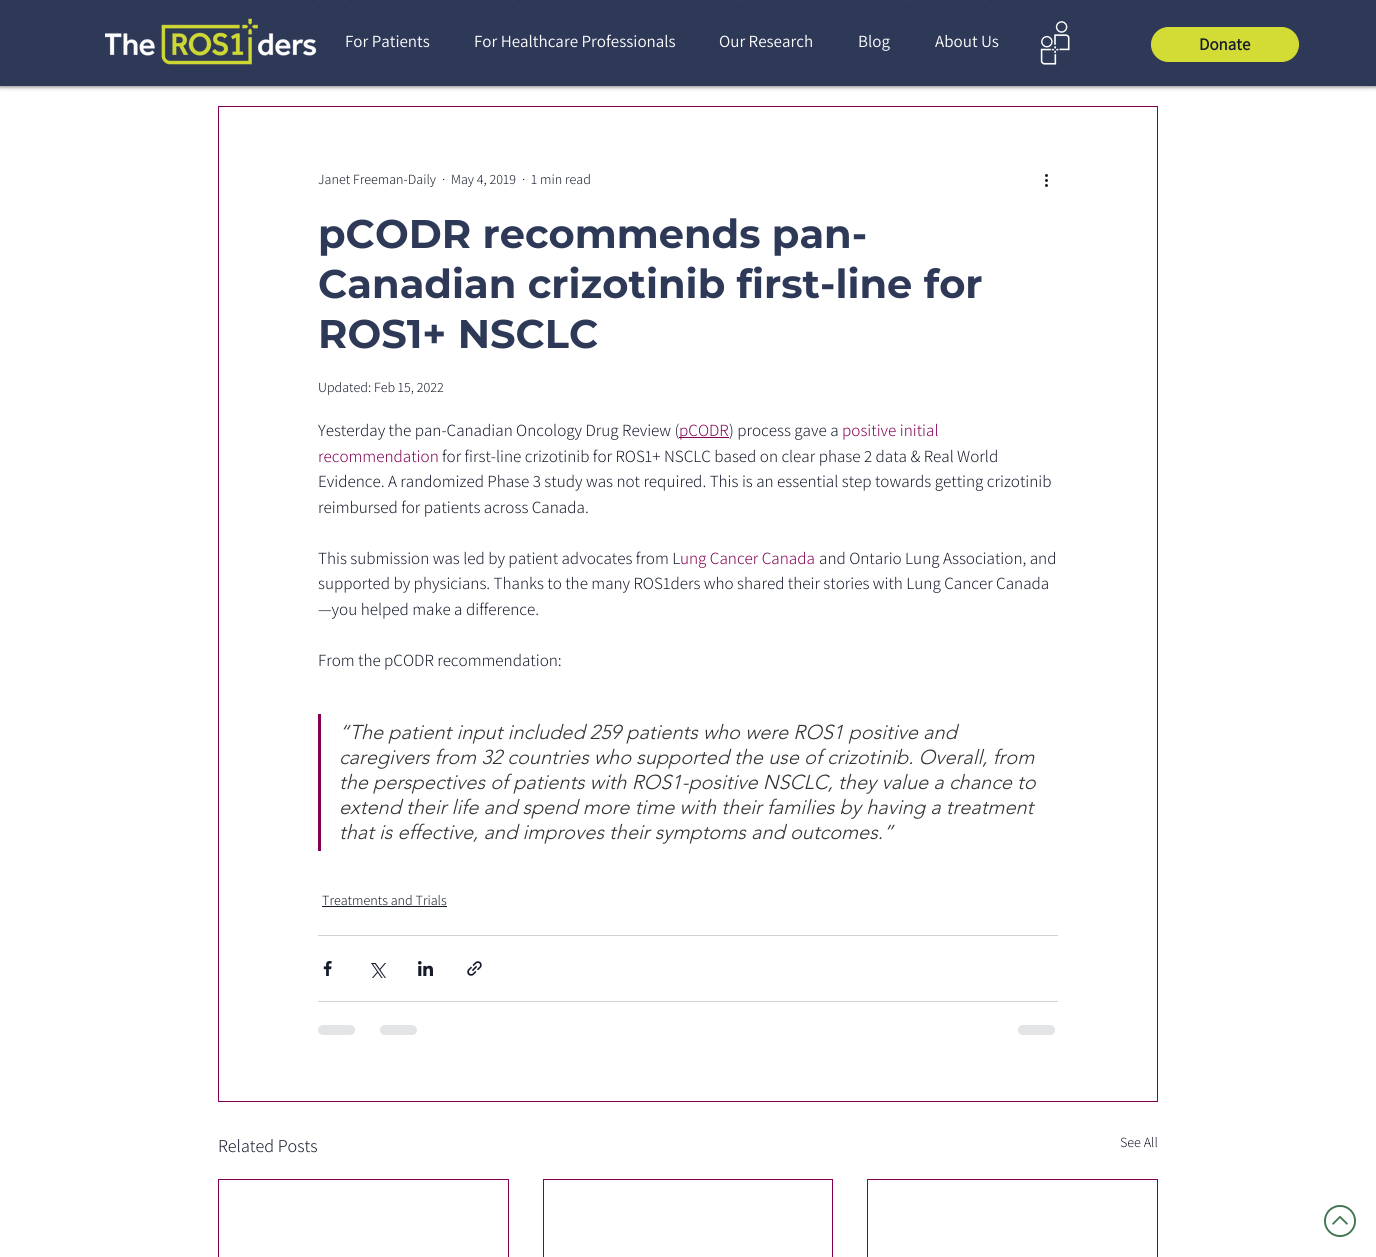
#include <cairo/cairo.h>
#include <math.h>
#include <stddef.h>


static void rounded_rect(cairo_t *cr, double x, double y, double w, double h, double r) {
  cairo_new_sub_path(cr);
  cairo_arc(cr, x + w - r, y + h - r, r, 0, M_PI / 2);
  cairo_arc(cr, x + r, y + h - r, r, M_PI / 2, M_PI);
  cairo_arc(cr, x + r, y + r, r, M_PI, 1.5 * M_PI);
  cairo_arc(cr, x + w - r, y + r, r, 1.5 * M_PI, 2 * M_PI);
  cairo_close_path(cr);
}

static void draw_shadow(cairo_t *cr, double x, double y, double w, double h, double r, double blur, double alpha) {
  cairo_push_group_with_content(cr, CAIRO_CONTENT_ALPHA);
  cairo_set_operator(cr, CAIRO_OPERATOR_SOURCE);
  for (int i = 15; i >= -15 && fmin(w, h) + blur * i / 3 > 0; i -= 2) {
    double e = blur * i / 6;
    cairo_set_source_rgba(cr, 0, 0, 0, alpha * erfc((i - 1) / 8.5) / 2);
    rounded_rect(cr, x - e, y - e, w + 2 * e, h + 2 * e, fmax(0, fmin(r + e + blur * .6, fmin(w, h) / 2 + e)));
    cairo_fill(cr);
  }
  cairo_pattern_t *soft = cairo_pop_group(cr);
  cairo_mask(cr, soft);
  cairo_pattern_destroy(soft);
}

static void draw_image(cairo_t *cr, const char *path, double x, double y, double w, double h) {
  cairo_surface_t *image = cairo_image_surface_create_from_png(path);
  cairo_save(cr);
  cairo_set_source_surface(cr, image, x, y);
  cairo_rectangle(cr, x, y, w, h);
  cairo_fill(cr);
  cairo_restore(cr);
  cairo_surface_destroy(image);
}

static void draw(cairo_t *cr) {
  cairo_set_source_rgb(cr, 1, 1, 1);
  cairo_paint(cr);
  cairo_set_source_rgb(cr, 0, 0, 0);
  draw_shadow(cr, 0, 0, 1376, 86, 0, 2.5, 0.7);
  cairo_set_source_rgb(cr, 46 / 255.0, 57 / 255.0, 88 / 255.0);
  cairo_rectangle(cr, 0, 0, 1376, 86);
  cairo_fill(cr);
  draw_image(cr, "images/1.png", 0, 0, 1376, 2);
  draw_image(cr, "images/2.png", 105, 18, 212, 47);
  draw_image(cr, "images/3.png", 1040, 21, 30, 44);
  cairo_set_source_rgb(cr, 211 / 255.0, 220 / 255.0, 52 / 255.0);
  rounded_rect(cr, 1151.5, 27.5, 147, 34, 17);
  cairo_fill_preserve(cr);
  cairo_set_line_width(cr, 1);
  cairo_stroke(cr);
  cairo_rectangle(cr, 218.5, 106.5, 939, 995);
  cairo_set_source_rgb(cr, 132 / 255.0, 0, 83 / 255.0);
  cairo_stroke(cr);
  draw_image(cr, "images/4.png", 1045, 174, 3, 13);
  cairo_rectangle(cr, 679, 437, 50, 1);
  cairo_fill(cr);
  cairo_rectangle(cr, 318, 714, 3, 137);
  cairo_fill(cr);
  cairo_set_source_rgb(cr, 23 / 255.0, 28 / 255.0, 44 / 255.0);
  cairo_rectangle(cr, 322, 906, 125, 1);
  cairo_fill(cr);
  cairo_set_source_rgb(cr, 209 / 255.0, 210 / 255.0, 213 / 255.0);
  cairo_rectangle(cr, 318, 935, 740, 1);
  cairo_fill(cr);
  draw_image(cr, "images/5.png", 323, 961, 9, 15);
  draw_image(cr, "images/6.png", 371, 963, 15, 15);
  draw_image(cr, "images/7.png", 418, 961, 15, 15);
  draw_image(cr, "images/8.png", 467, 961, 15, 15);
  cairo_rectangle(cr, 318, 1001, 740, 1);
  cairo_fill(cr);
  cairo_set_source_rgb(cr, 227 / 255.0, 228 / 255.0, 230 / 255.0);
  rounded_rect(cr, 318, 1025, 37, 10, 5);
  cairo_fill(cr);
  rounded_rect(cr, 380, 1025, 37, 10, 5);
  cairo_fill(cr);
  rounded_rect(cr, 1018, 1025, 37, 10, 5);
  cairo_fill(cr);
  cairo_rectangle(cr, 218.5, 1179.5, 290, 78);
  cairo_set_source_rgb(cr, 132 / 255.0, 0, 83 / 255.0);
  cairo_stroke(cr);
  cairo_rectangle(cr, 543.5, 1179.5, 289, 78);
  cairo_stroke(cr);
  cairo_rectangle(cr, 867.5, 1179.5, 290, 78);
  cairo_stroke(cr);
  draw_image(cr, "images/9.png", 1324, 1205, 32, 32);
  cairo_select_font_face(cr, "Assistant", CAIRO_FONT_SLANT_NORMAL, CAIRO_FONT_WEIGHT_NORMAL);
  cairo_set_font_size(cr, 17);
  cairo_set_source_rgb(cr, 1, 1, 1);
  cairo_move_to(cr, 345, 47);
  cairo_show_text(cr, "For Patients");
  cairo_move_to(cr, 474, 47);
  cairo_show_text(cr, "For Healthcare Professionals");
  cairo_move_to(cr, 719, 47);
  cairo_show_text(cr, "Our Research");
  cairo_move_to(cr, 858, 47);
  cairo_show_text(cr, "Blog");
  cairo_move_to(cr, 935, 47);
  cairo_show_text(cr, "About Us");
  cairo_select_font_face(cr, "Assistant", CAIRO_FONT_SLANT_NORMAL, CAIRO_FONT_WEIGHT_BOLD);
  cairo_set_source_rgb(cr, 23 / 255.0, 28 / 255.0, 44 / 255.0);
  cairo_move_to(cr, 1199, 50);
  cairo_show_text(cr, "Donate");
  cairo_select_font_face(cr, "Assistant Light", CAIRO_FONT_SLANT_NORMAL, CAIRO_FONT_WEIGHT_NORMAL);
  cairo_set_font_size(cr, 14);
  cairo_move_to(cr, 318, 184);
  cairo_show_text(cr, "Janet Freeman-Daily");
  cairo_move_to(cr, 442, 184);
  cairo_show_text(cr, "·");
  cairo_move_to(cr, 451, 184);
  cairo_show_text(cr, "May 4, 2019");
  cairo_move_to(cr, 522, 184);
  cairo_show_text(cr, "·");
  cairo_move_to(cr, 531, 184);
  cairo_show_text(cr, "1 min read");
  cairo_select_font_face(cr, "Montserrat", CAIRO_FONT_SLANT_NORMAL, CAIRO_FONT_WEIGHT_BOLD);
  cairo_set_font_size(cr, 40);
  cairo_set_source_rgb(cr, 46 / 255.0, 57 / 255.0, 88 / 255.0);
  cairo_move_to(cr, 318, 248);
  cairo_show_text(cr, "pCODR recommends pan-");
  cairo_move_to(cr, 318, 298);
  cairo_show_text(cr, "Canadian crizotinib first-line for");
  cairo_move_to(cr, 318, 348);
  cairo_show_text(cr, "ROS1+ NSCLC");
  cairo_select_font_face(cr, "Assistant Light", CAIRO_FONT_SLANT_NORMAL, CAIRO_FONT_WEIGHT_NORMAL);
  cairo_set_font_size(cr, 14);
  cairo_set_source_rgb(cr, 23 / 255.0, 28 / 255.0, 44 / 255.0);
  cairo_move_to(cr, 318, 392);
  cairo_show_text(cr, "Updated: Feb 15, 2022");
  cairo_set_font_size(cr, 17);
  cairo_move_to(cr, 318, 436);
  cairo_show_text(cr, "Yesterday the pan-Canadian Oncology Drug Review (");
  cairo_set_source_rgb(cr, 132 / 255.0, 0, 83 / 255.0);
  cairo_move_to(cr, 679, 436);
  cairo_show_text(cr, "pCODR");
  cairo_set_source_rgb(cr, 23 / 255.0, 28 / 255.0, 44 / 255.0);
  cairo_move_to(cr, 729, 436);
  cairo_show_text(cr, ") process gave a");
  cairo_set_source_rgb(cr, 132 / 255.0, 0, 83 / 255.0);
  cairo_move_to(cr, 842, 436);
  cairo_show_text(cr, "positive initial");
  cairo_move_to(cr, 318, 462);
  cairo_show_text(cr, "recommendation");
  cairo_set_source_rgb(cr, 23 / 255.0, 28 / 255.0, 44 / 255.0);
  cairo_move_to(cr, 442, 462);
  cairo_show_text(cr, "for first-line crizotinib for ROS1+ NSCLC based on clear phase 2 data & Real World");
  cairo_move_to(cr, 318, 487);
  cairo_show_text(cr, "Evidence. A randomized Phase 3 study was not required. This is an essential step towards getting crizotinib");
  cairo_move_to(cr, 318, 513);
  cairo_show_text(cr, "reimbursed for patients across Canada.");
  cairo_move_to(cr, 318, 564);
  cairo_show_text(cr, "This submission was led by patient advocates from L");
  cairo_set_source_rgb(cr, 132 / 255.0, 0, 83 / 255.0);
  cairo_move_to(cr, 680, 564);
  cairo_show_text(cr, "ung Cancer Canada");
  cairo_set_source_rgb(cr, 23 / 255.0, 28 / 255.0, 44 / 255.0);
  cairo_move_to(cr, 819, 564);
  cairo_show_text(cr, "and Ontario Lung Association, and");
  cairo_move_to(cr, 318, 589);
  cairo_show_text(cr, "supported by physicians. Thanks to the many ROS1ders who shared their stories with Lung Cancer Canada");
  cairo_move_to(cr, 318, 615);
  cairo_show_text(cr, "—you helped make a difference.");
  cairo_move_to(cr, 318, 666);
  cairo_show_text(cr, "From the pCODR recommendation:");
  cairo_select_font_face(cr, "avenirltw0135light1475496 Light", CAIRO_FONT_SLANT_ITALIC, CAIRO_FONT_WEIGHT_NORMAL);
  cairo_set_font_size(cr, 20);
  cairo_set_source_rgb(cr, 51 / 255.0, 51 / 255.0, 51 / 255.0);
  cairo_move_to(cr, 339, 739);
  cairo_show_text(cr, "“The patient input included 259 patients who were ROS1 positive and");
  cairo_move_to(cr, 339, 764);
  cairo_show_text(cr, "caregivers from 32 countries who supported the use of crizotinib. Overall, from");
  cairo_move_to(cr, 339, 789);
  cairo_show_text(cr, "the perspectives of patients with ROS1-positive NSCLC, they value a chance to");
  cairo_move_to(cr, 339, 814);
  cairo_show_text(cr, "extend their life and spend more time with their families by having a treatment");
  cairo_move_to(cr, 339, 839);
  cairo_show_text(cr, "that is effective, and improves their symptoms and outcomes.”");
  cairo_select_font_face(cr, "Assistant Light", CAIRO_FONT_SLANT_NORMAL, CAIRO_FONT_WEIGHT_NORMAL);
  cairo_set_font_size(cr, 14);
  cairo_set_source_rgb(cr, 23 / 255.0, 28 / 255.0, 44 / 255.0);
  cairo_move_to(cr, 322, 905);
  cairo_show_text(cr, "Treatments and Trials");
  cairo_set_font_size(cr, 18);
  cairo_move_to(cr, 218, 1152);
  cairo_show_text(cr, "Related Posts");
  cairo_set_font_size(cr, 14);
  cairo_move_to(cr, 1120, 1147);
  cairo_show_text(cr, "See All");
}

int main(void) {
  cairo_surface_t *surface = cairo_image_surface_create(CAIRO_FORMAT_RGB24, 1376, 1257);
  cairo_t *cr = cairo_create(surface);
  cairo_font_options_t *options = cairo_font_options_create();
  cairo_font_options_set_hint_metrics(options, CAIRO_HINT_METRICS_OFF);
  cairo_font_options_set_hint_style(options, CAIRO_HINT_STYLE_NONE);
  cairo_set_font_options(cr, options);
  cairo_set_miter_limit(cr, 4);
  draw(cr);
  cairo_surface_write_to_png(surface, "out.png");
  cairo_font_options_destroy(options);
  cairo_destroy(cr);
  cairo_surface_destroy(surface);
  return 0;
}
